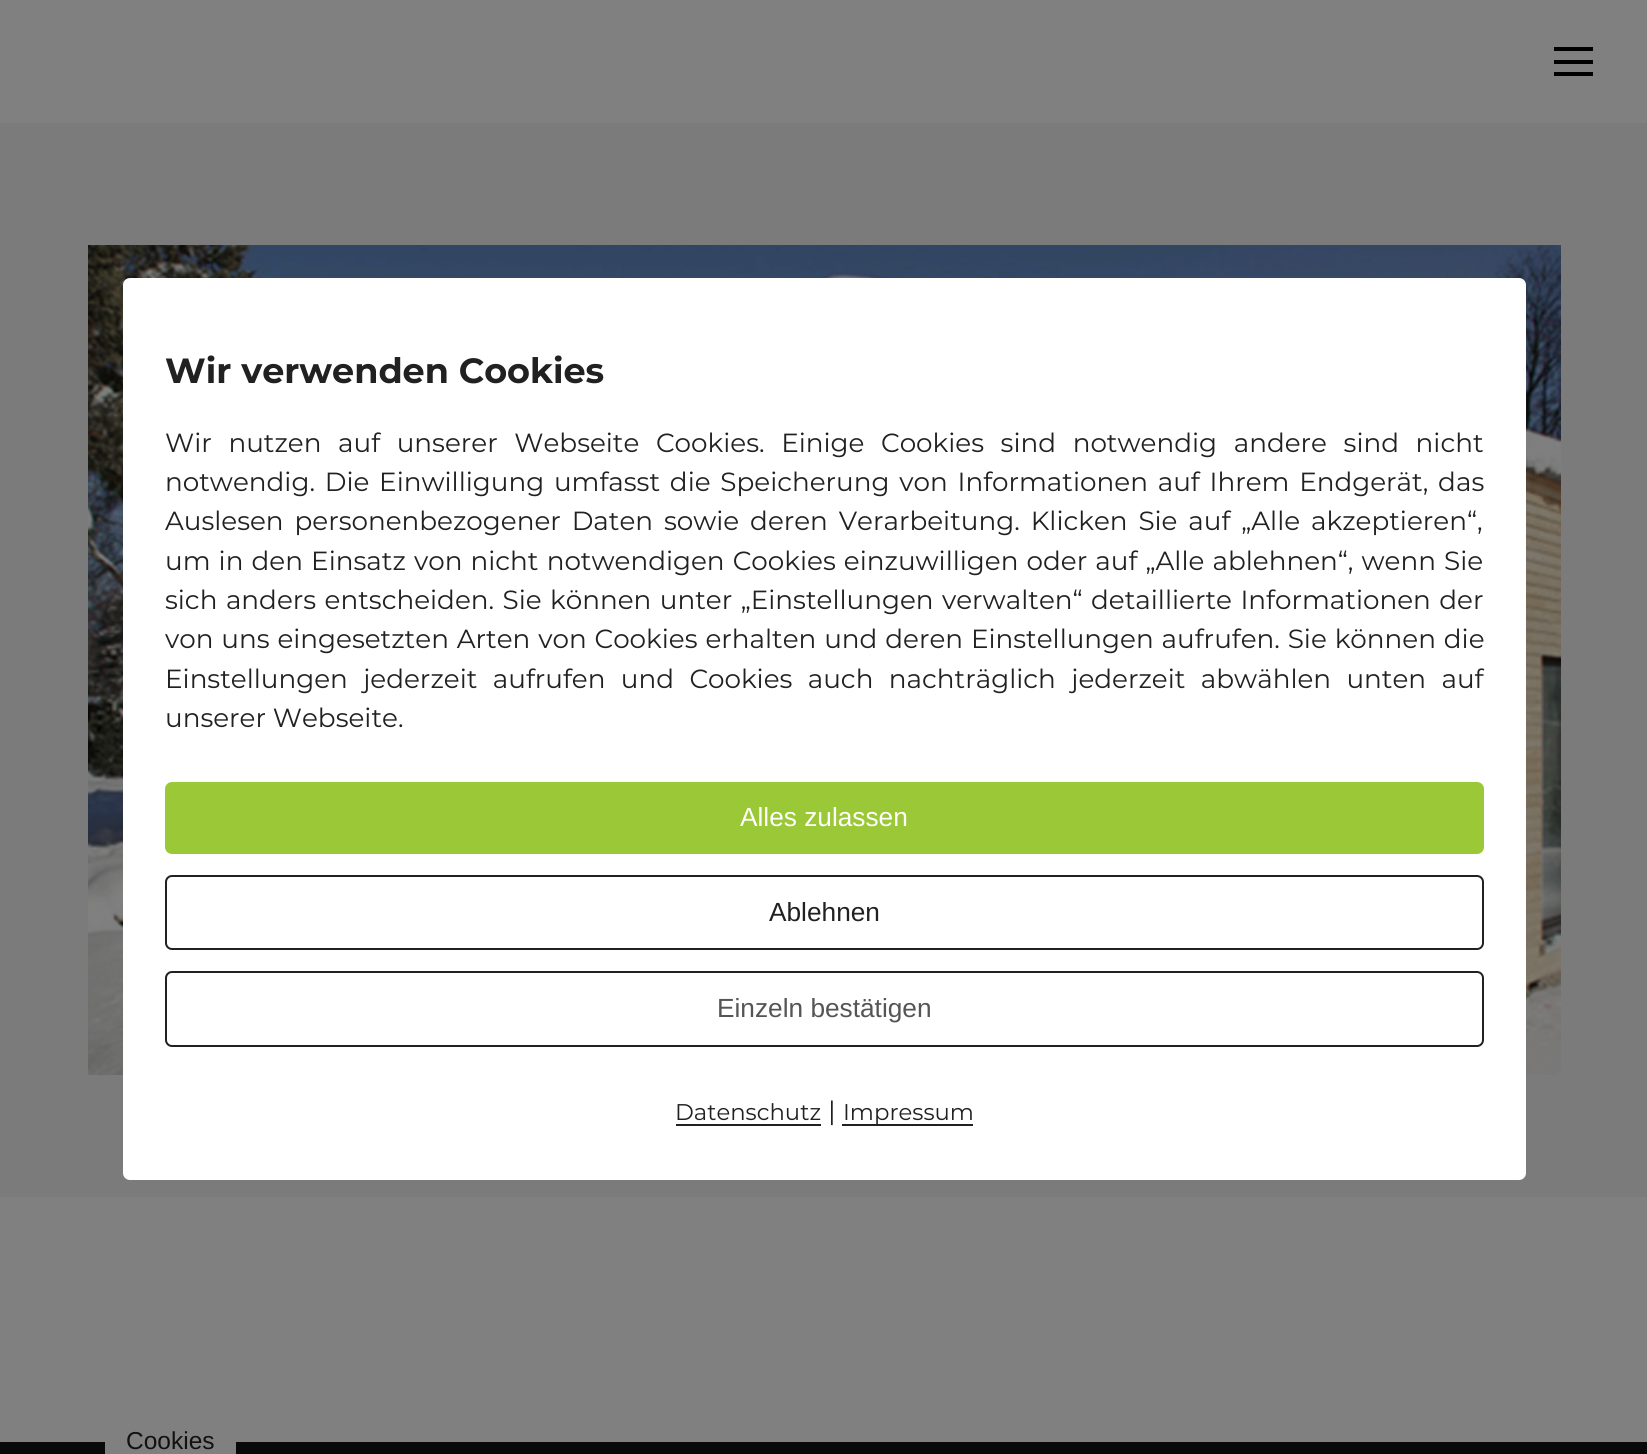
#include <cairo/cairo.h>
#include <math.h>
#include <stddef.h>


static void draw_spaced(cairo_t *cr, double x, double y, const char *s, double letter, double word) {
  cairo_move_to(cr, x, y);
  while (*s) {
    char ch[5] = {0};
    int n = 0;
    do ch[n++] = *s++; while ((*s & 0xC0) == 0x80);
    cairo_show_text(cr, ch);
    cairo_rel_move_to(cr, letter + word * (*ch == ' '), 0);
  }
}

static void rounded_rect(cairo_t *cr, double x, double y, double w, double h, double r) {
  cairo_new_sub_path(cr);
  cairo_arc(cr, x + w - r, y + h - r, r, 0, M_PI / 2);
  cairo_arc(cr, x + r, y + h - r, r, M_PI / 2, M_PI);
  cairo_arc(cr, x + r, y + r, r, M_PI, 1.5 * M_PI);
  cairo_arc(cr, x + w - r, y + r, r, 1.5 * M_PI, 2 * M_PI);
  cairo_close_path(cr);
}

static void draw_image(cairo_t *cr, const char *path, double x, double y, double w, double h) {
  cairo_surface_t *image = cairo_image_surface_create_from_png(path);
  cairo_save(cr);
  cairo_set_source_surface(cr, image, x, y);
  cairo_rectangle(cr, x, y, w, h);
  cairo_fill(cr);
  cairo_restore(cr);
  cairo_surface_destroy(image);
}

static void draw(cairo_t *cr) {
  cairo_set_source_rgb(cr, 128 / 255.0, 128 / 255.0, 128 / 255.0);
  cairo_paint(cr);
  cairo_set_source_rgb(cr, 0, 0, 0);
  cairo_rectangle(cr, 1554, 47, 39, 4);
  cairo_fill(cr);
  cairo_rectangle(cr, 1554, 60, 39, 4);
  cairo_fill(cr);
  cairo_rectangle(cr, 1554, 72, 39, 4);
  cairo_fill(cr);
  cairo_set_source_rgb(cr, 123 / 255.0, 123 / 255.0, 124 / 255.0);
  cairo_rectangle(cr, 0, 123, 1647, 1074);
  cairo_fill(cr);
  draw_image(cr, "images/1.png", 88, 245, 1473, 830);
  cairo_set_source_rgb(cr, 9 / 255.0, 9 / 255.0, 9 / 255.0);
  cairo_rectangle(cr, 0, 1442, 1647, 12);
  cairo_fill(cr);
  cairo_set_source_rgb(cr, 1, 1, 1);
  rounded_rect(cr, 123, 278, 1403, 902, 7);
  cairo_fill(cr);
  cairo_set_source_rgb(cr, 154 / 255.0, 200 / 255.0, 54 / 255.0);
  rounded_rect(cr, 165, 782, 1319, 72, 7);
  cairo_fill(cr);
  rounded_rect(cr, 166, 876, 1317, 73, 6);
  cairo_set_source_rgb(cr, 33 / 255.0, 33 / 255.0, 33 / 255.0);
  cairo_stroke(cr);
  rounded_rect(cr, 166, 972, 1317, 74, 6);
  cairo_stroke(cr);
  cairo_rectangle(cr, 676, 1124, 145, 2);
  cairo_fill(cr);
  cairo_rectangle(cr, 842, 1124, 131, 2);
  cairo_fill(cr);
  cairo_set_source_rgb(cr, 128 / 255.0, 128 / 255.0, 128 / 255.0);
  cairo_new_path(cr);
  cairo_move_to(cr, 112, 1426);
  cairo_line_to(cr, 229, 1426);
  cairo_curve_to(cr, 233, 1426, 236, 1429, 236, 1433);
  cairo_line_to(cr, 236, 1454);
  cairo_line_to(cr, 105, 1454);
  cairo_line_to(cr, 105, 1433);
  cairo_curve_to(cr, 105, 1429, 108, 1426, 112, 1426);
  cairo_close_path(cr);
  cairo_fill(cr);
  cairo_select_font_face(cr, "Montserrat", CAIRO_FONT_SLANT_NORMAL, CAIRO_FONT_WEIGHT_BOLD);
  cairo_set_font_size(cr, 35);
  cairo_set_source_rgb(cr, 33 / 255.0, 33 / 255.0, 33 / 255.0);
  cairo_move_to(cr, 165, 383);
  cairo_show_text(cr, "Wir verwenden Cookies");
  cairo_select_font_face(cr, "Montserrat", CAIRO_FONT_SLANT_NORMAL, CAIRO_FONT_WEIGHT_NORMAL);
  cairo_set_font_size(cr, 26.25);
  draw_spaced(cr, 165, 452, "Wir nutzen auf unserer Webseite Cookies. Einige Cookies sind notwendig andere sind nicht", 0, 9.75);
  draw_spaced(cr, 165, 491, "notwendig. Die Einwilligung umfasst die Speicherung von Informationen auf Ihrem Endgerät, das", 0, 2.9);
  draw_spaced(cr, 165, 530, "Auslesen personenbezogener Daten sowie deren Verarbeitung. Klicken Sie auf „Alle akzeptieren“,", 0, 4);
  draw_spaced(cr, 165, 570, "um in den Einsatz von nicht notwendigen Cookies einzuwilligen oder auf „Alle ablehnen“, wenn Sie", 0, 1.25);
  draw_spaced(cr, 165, 609, "sich anders entscheiden. Sie können unter „Einstellungen verwalten“ detaillierte Informationen der", 0, 1.6);
  draw_spaced(cr, 165, 648, "von uns eingesetzten Arten von Cookies erhalten und deren Einstellungen aufrufen. Sie können die", 0, 1);
  draw_spaced(cr, 165, 688, "Einstellungen jederzeit aufrufen und Cookies auch nachträglich jederzeit abwählen unten auf", 0, 8.5);
  cairo_move_to(cr, 165, 727);
  cairo_show_text(cr, "unserer Webseite.");
  cairo_select_font_face(cr, "Liberation Sans", CAIRO_FONT_SLANT_NORMAL, CAIRO_FONT_WEIGHT_NORMAL);
  cairo_set_source_rgb(cr, 1, 1, 1);
  cairo_move_to(cr, 740, 826);
  cairo_show_text(cr, "Alles zulassen");
  cairo_set_source_rgb(cr, 33 / 255.0, 33 / 255.0, 33 / 255.0);
  cairo_move_to(cr, 769, 921);
  cairo_show_text(cr, "Ablehnen");
  cairo_set_source_rgb(cr, 85 / 255.0, 85 / 255.0, 85 / 255.0);
  cairo_move_to(cr, 717, 1017);
  cairo_show_text(cr, "Einzeln bestätigen");
  cairo_select_font_face(cr, "Montserrat", CAIRO_FONT_SLANT_NORMAL, CAIRO_FONT_WEIGHT_NORMAL);
  cairo_set_font_size(cr, 22.75);
  cairo_set_source_rgb(cr, 33 / 255.0, 33 / 255.0, 33 / 255.0);
  cairo_move_to(cr, 675, 1120);
  cairo_show_text(cr, "Datenschutz");
  cairo_set_font_size(cr, 26.25);
  cairo_move_to(cr, 828, 1120);
  cairo_show_text(cr, "|");
  cairo_set_font_size(cr, 22.75);
  cairo_move_to(cr, 843, 1120);
  cairo_show_text(cr, "Impressum");
  cairo_select_font_face(cr, "Liberation Sans", CAIRO_FONT_SLANT_NORMAL, CAIRO_FONT_WEIGHT_NORMAL);
  cairo_set_font_size(cr, 24.5);
  cairo_set_source_rgb(cr, 17 / 255.0, 17 / 255.0, 17 / 255.0);
  cairo_move_to(cr, 126, 1449);
  cairo_show_text(cr, "Cookies");
}

int main(void) {
  cairo_surface_t *surface = cairo_image_surface_create(CAIRO_FORMAT_RGB24, 1647, 1454);
  cairo_t *cr = cairo_create(surface);
  cairo_font_options_t *options = cairo_font_options_create();
  cairo_font_options_set_hint_metrics(options, CAIRO_HINT_METRICS_OFF);
  cairo_font_options_set_hint_style(options, CAIRO_HINT_STYLE_NONE);
  cairo_set_font_options(cr, options);
  cairo_set_miter_limit(cr, 4);
  draw(cr);
  cairo_surface_write_to_png(surface, "out.png");
  cairo_font_options_destroy(options);
  cairo_destroy(cr);
  cairo_surface_destroy(surface);
  return 0;
}
